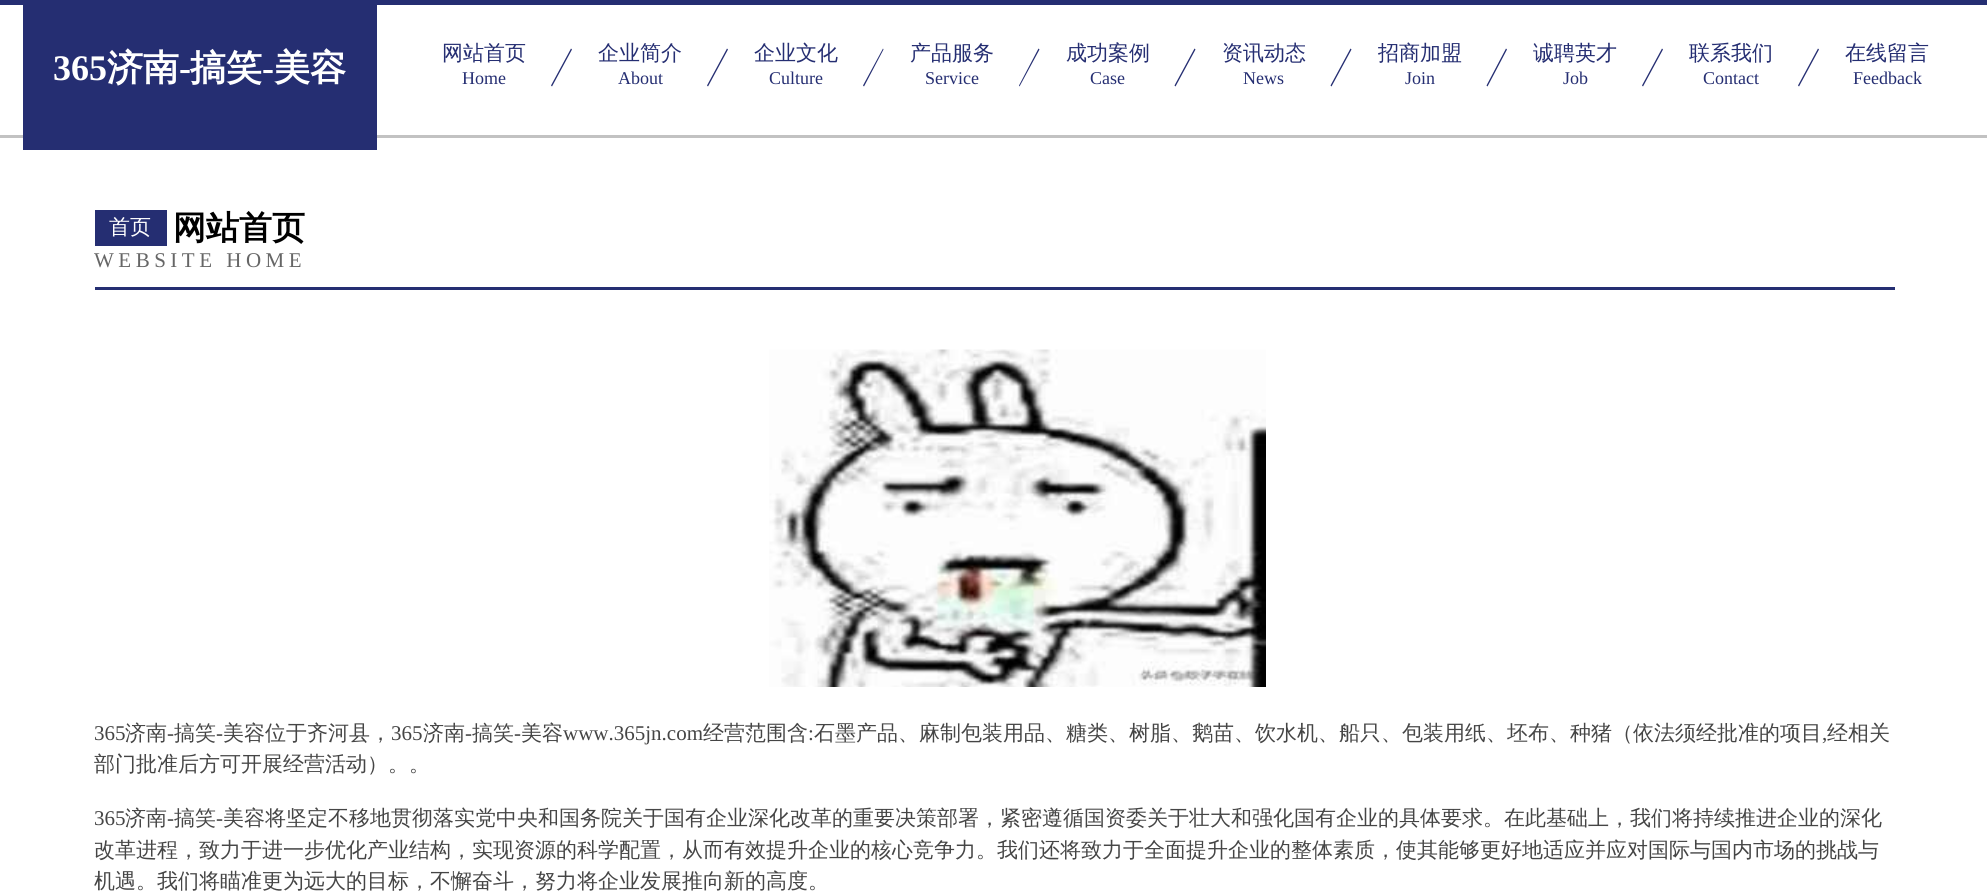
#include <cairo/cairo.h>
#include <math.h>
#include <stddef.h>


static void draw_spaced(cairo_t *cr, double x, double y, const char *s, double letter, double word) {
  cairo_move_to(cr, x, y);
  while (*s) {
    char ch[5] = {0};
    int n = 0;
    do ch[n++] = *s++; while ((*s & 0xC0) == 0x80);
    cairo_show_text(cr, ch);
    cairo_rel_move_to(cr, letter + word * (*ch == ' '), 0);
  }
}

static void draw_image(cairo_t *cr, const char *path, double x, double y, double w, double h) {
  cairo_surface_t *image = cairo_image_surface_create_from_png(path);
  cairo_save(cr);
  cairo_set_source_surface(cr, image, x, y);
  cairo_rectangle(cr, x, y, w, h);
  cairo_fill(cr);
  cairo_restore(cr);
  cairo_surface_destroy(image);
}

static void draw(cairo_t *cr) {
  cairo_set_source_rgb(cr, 1, 1, 1);
  cairo_paint(cr);
  cairo_set_source_rgb(cr, 37 / 255.0, 46 / 255.0, 114 / 255.0);
  cairo_rectangle(cr, 0, 0, 1987, 5);
  cairo_fill(cr);
  cairo_set_source_rgb(cr, 194 / 255.0, 194 / 255.0, 194 / 255.0);
  cairo_rectangle(cr, 0, 135, 1987, 3);
  cairo_fill(cr);
  cairo_set_source_rgb(cr, 37 / 255.0, 46 / 255.0, 114 / 255.0);
  cairo_rectangle(cr, 23, 5, 354, 145);
  cairo_fill(cr);
  cairo_new_path(cr);
  cairo_move_to(cr, 571, 48.5);
  cairo_line_to(cr, 572, 49.5);
  cairo_line_to(cr, 552, 86.5);
  cairo_line_to(cr, 551, 85.5);
  cairo_close_path(cr);
  cairo_fill(cr);
  cairo_new_path(cr);
  cairo_move_to(cr, 727, 48.5);
  cairo_line_to(cr, 728, 49.5);
  cairo_line_to(cr, 708, 86.5);
  cairo_line_to(cr, 707, 85.5);
  cairo_close_path(cr);
  cairo_fill(cr);
  cairo_new_path(cr);
  cairo_move_to(cr, 883, 48.5);
  cairo_line_to(cr, 883.5, 49.5);
  cairo_line_to(cr, 864, 86.5);
  cairo_line_to(cr, 863, 85.5);
  cairo_close_path(cr);
  cairo_fill(cr);
  cairo_new_path(cr);
  cairo_move_to(cr, 1038.5, 48.5);
  cairo_line_to(cr, 1039.5, 49.5);
  cairo_line_to(cr, 1019.5, 86.5);
  cairo_line_to(cr, 1019, 85.5);
  cairo_close_path(cr);
  cairo_fill(cr);
  cairo_new_path(cr);
  cairo_move_to(cr, 1194.5, 48.5);
  cairo_line_to(cr, 1195.5, 49.5);
  cairo_line_to(cr, 1175.5, 86.5);
  cairo_line_to(cr, 1174.5, 85.5);
  cairo_close_path(cr);
  cairo_fill(cr);
  cairo_new_path(cr);
  cairo_move_to(cr, 1350.5, 48.5);
  cairo_line_to(cr, 1351.5, 49.5);
  cairo_line_to(cr, 1331.5, 86.5);
  cairo_line_to(cr, 1330.5, 85.5);
  cairo_close_path(cr);
  cairo_fill(cr);
  cairo_new_path(cr);
  cairo_move_to(cr, 1506, 48.5);
  cairo_line_to(cr, 1507, 49.5);
  cairo_line_to(cr, 1487.5, 86.5);
  cairo_line_to(cr, 1486.5, 85.5);
  cairo_close_path(cr);
  cairo_fill(cr);
  cairo_new_path(cr);
  cairo_move_to(cr, 1662, 48.5);
  cairo_line_to(cr, 1663, 49.5);
  cairo_line_to(cr, 1643, 86.5);
  cairo_line_to(cr, 1642, 85.5);
  cairo_close_path(cr);
  cairo_fill(cr);
  cairo_new_path(cr);
  cairo_move_to(cr, 1818, 48.5);
  cairo_line_to(cr, 1819, 49.5);
  cairo_line_to(cr, 1799, 86.5);
  cairo_line_to(cr, 1798, 85.5);
  cairo_close_path(cr);
  cairo_fill(cr);
  cairo_rectangle(cr, 95, 287, 1800, 3);
  cairo_fill(cr);
  cairo_rectangle(cr, 95, 210, 72, 36);
  cairo_fill(cr);
  draw_image(cr, "images/1.png", 769, 349, 497, 338);
  cairo_select_font_face(cr, "Liberation Serif", CAIRO_FONT_SLANT_NORMAL, CAIRO_FONT_WEIGHT_BOLD);
  cairo_set_font_size(cr, 36);
  cairo_set_source_rgb(cr, 1, 1, 1);
  cairo_move_to(cr, 53, 80);
  cairo_show_text(cr, "365");
  cairo_select_font_face(cr, "WenQuanYi Zen Hei", CAIRO_FONT_SLANT_NORMAL, CAIRO_FONT_WEIGHT_BOLD);
  cairo_move_to(cr, 107, 80);
  cairo_show_text(cr, "济南");
  cairo_select_font_face(cr, "Liberation Serif", CAIRO_FONT_SLANT_NORMAL, CAIRO_FONT_WEIGHT_BOLD);
  cairo_move_to(cr, 179, 80);
  cairo_show_text(cr, "-");
  cairo_select_font_face(cr, "WenQuanYi Zen Hei", CAIRO_FONT_SLANT_NORMAL, CAIRO_FONT_WEIGHT_BOLD);
  cairo_move_to(cr, 190, 80);
  cairo_show_text(cr, "搞笑");
  cairo_select_font_face(cr, "Liberation Serif", CAIRO_FONT_SLANT_NORMAL, CAIRO_FONT_WEIGHT_BOLD);
  cairo_move_to(cr, 262, 80);
  cairo_show_text(cr, "-");
  cairo_select_font_face(cr, "WenQuanYi Zen Hei", CAIRO_FONT_SLANT_NORMAL, CAIRO_FONT_WEIGHT_BOLD);
  cairo_move_to(cr, 274, 80);
  cairo_show_text(cr, "美容");
  cairo_select_font_face(cr, "WenQuanYi Zen Hei Medium", CAIRO_FONT_SLANT_NORMAL, CAIRO_FONT_WEIGHT_NORMAL);
  cairo_set_font_size(cr, 21);
  cairo_set_source_rgb(cr, 37 / 255.0, 46 / 255.0, 114 / 255.0);
  cairo_move_to(cr, 442, 60);
  cairo_show_text(cr, "网站首页");
  cairo_select_font_face(cr, "Liberation Serif", CAIRO_FONT_SLANT_NORMAL, CAIRO_FONT_WEIGHT_NORMAL);
  cairo_set_font_size(cr, 18);
  cairo_move_to(cr, 462, 84);
  cairo_show_text(cr, "Home");
  cairo_select_font_face(cr, "WenQuanYi Zen Hei Medium", CAIRO_FONT_SLANT_NORMAL, CAIRO_FONT_WEIGHT_NORMAL);
  cairo_set_font_size(cr, 21);
  cairo_move_to(cr, 598, 60);
  cairo_show_text(cr, "企业简介");
  cairo_select_font_face(cr, "Liberation Serif", CAIRO_FONT_SLANT_NORMAL, CAIRO_FONT_WEIGHT_NORMAL);
  cairo_set_font_size(cr, 18);
  cairo_move_to(cr, 618, 84);
  cairo_show_text(cr, "About");
  cairo_select_font_face(cr, "WenQuanYi Zen Hei Medium", CAIRO_FONT_SLANT_NORMAL, CAIRO_FONT_WEIGHT_NORMAL);
  cairo_set_font_size(cr, 21);
  cairo_move_to(cr, 754, 60);
  cairo_show_text(cr, "企业文化");
  cairo_select_font_face(cr, "Liberation Serif", CAIRO_FONT_SLANT_NORMAL, CAIRO_FONT_WEIGHT_NORMAL);
  cairo_set_font_size(cr, 18);
  cairo_move_to(cr, 769, 84);
  cairo_show_text(cr, "Culture");
  cairo_select_font_face(cr, "WenQuanYi Zen Hei Medium", CAIRO_FONT_SLANT_NORMAL, CAIRO_FONT_WEIGHT_NORMAL);
  cairo_set_font_size(cr, 21);
  cairo_move_to(cr, 910, 60);
  cairo_show_text(cr, "产品服务");
  cairo_select_font_face(cr, "Liberation Serif", CAIRO_FONT_SLANT_NORMAL, CAIRO_FONT_WEIGHT_NORMAL);
  cairo_set_font_size(cr, 18);
  cairo_move_to(cr, 925, 84);
  cairo_show_text(cr, "Service");
  cairo_select_font_face(cr, "WenQuanYi Zen Hei Medium", CAIRO_FONT_SLANT_NORMAL, CAIRO_FONT_WEIGHT_NORMAL);
  cairo_set_font_size(cr, 21);
  cairo_move_to(cr, 1066, 60);
  cairo_show_text(cr, "成功案例");
  cairo_select_font_face(cr, "Liberation Serif", CAIRO_FONT_SLANT_NORMAL, CAIRO_FONT_WEIGHT_NORMAL);
  cairo_set_font_size(cr, 18);
  cairo_move_to(cr, 1090, 84);
  cairo_show_text(cr, "Case");
  cairo_select_font_face(cr, "WenQuanYi Zen Hei Medium", CAIRO_FONT_SLANT_NORMAL, CAIRO_FONT_WEIGHT_NORMAL);
  cairo_set_font_size(cr, 21);
  cairo_move_to(cr, 1222, 60);
  cairo_show_text(cr, "资讯动态");
  cairo_select_font_face(cr, "Liberation Serif", CAIRO_FONT_SLANT_NORMAL, CAIRO_FONT_WEIGHT_NORMAL);
  cairo_set_font_size(cr, 18);
  cairo_move_to(cr, 1243, 84);
  cairo_show_text(cr, "News");
  cairo_select_font_face(cr, "WenQuanYi Zen Hei Medium", CAIRO_FONT_SLANT_NORMAL, CAIRO_FONT_WEIGHT_NORMAL);
  cairo_set_font_size(cr, 21);
  cairo_move_to(cr, 1378, 60);
  cairo_show_text(cr, "招商加盟");
  cairo_select_font_face(cr, "Liberation Serif", CAIRO_FONT_SLANT_NORMAL, CAIRO_FONT_WEIGHT_NORMAL);
  cairo_set_font_size(cr, 18);
  cairo_move_to(cr, 1405, 84);
  cairo_show_text(cr, "Join");
  cairo_select_font_face(cr, "WenQuanYi Zen Hei Medium", CAIRO_FONT_SLANT_NORMAL, CAIRO_FONT_WEIGHT_NORMAL);
  cairo_set_font_size(cr, 21);
  cairo_move_to(cr, 1533, 60);
  cairo_show_text(cr, "诚聘英才");
  cairo_select_font_face(cr, "Liberation Serif", CAIRO_FONT_SLANT_NORMAL, CAIRO_FONT_WEIGHT_NORMAL);
  cairo_set_font_size(cr, 18);
  cairo_move_to(cr, 1563, 84);
  cairo_show_text(cr, "Job");
  cairo_select_font_face(cr, "WenQuanYi Zen Hei Medium", CAIRO_FONT_SLANT_NORMAL, CAIRO_FONT_WEIGHT_NORMAL);
  cairo_set_font_size(cr, 21);
  cairo_move_to(cr, 1689, 60);
  cairo_show_text(cr, "联系我们");
  cairo_select_font_face(cr, "Liberation Serif", CAIRO_FONT_SLANT_NORMAL, CAIRO_FONT_WEIGHT_NORMAL);
  cairo_set_font_size(cr, 18);
  cairo_move_to(cr, 1703, 84);
  cairo_show_text(cr, "Contact");
  cairo_select_font_face(cr, "WenQuanYi Zen Hei Medium", CAIRO_FONT_SLANT_NORMAL, CAIRO_FONT_WEIGHT_NORMAL);
  cairo_set_font_size(cr, 21);
  cairo_move_to(cr, 1845, 60);
  cairo_show_text(cr, "在线留言");
  cairo_select_font_face(cr, "Liberation Serif", CAIRO_FONT_SLANT_NORMAL, CAIRO_FONT_WEIGHT_NORMAL);
  cairo_set_font_size(cr, 18);
  cairo_move_to(cr, 1853, 84);
  cairo_show_text(cr, "Feedback");
  cairo_select_font_face(cr, "WenQuanYi Zen Hei Medium", CAIRO_FONT_SLANT_NORMAL, CAIRO_FONT_WEIGHT_NORMAL);
  cairo_set_font_size(cr, 21);
  cairo_set_source_rgb(cr, 1, 1, 1);
  cairo_move_to(cr, 109, 234);
  cairo_show_text(cr, "首页");
  cairo_select_font_face(cr, "WenQuanYi Zen Hei", CAIRO_FONT_SLANT_NORMAL, CAIRO_FONT_WEIGHT_BOLD);
  cairo_set_font_size(cr, 33);
  cairo_set_source_rgb(cr, 0, 0, 0);
  cairo_move_to(cr, 173, 239);
  cairo_show_text(cr, "网站首页");
  cairo_select_font_face(cr, "Liberation Serif", CAIRO_FONT_SLANT_NORMAL, CAIRO_FONT_WEIGHT_NORMAL);
  cairo_set_font_size(cr, 21);
  cairo_set_source_rgb(cr, 102 / 255.0, 102 / 255.0, 102 / 255.0);
  draw_spaced(cr, 94, 267, "WEBSITE HOME", 4.5, 0);
  cairo_set_source_rgb(cr, 69 / 255.0, 69 / 255.0, 69 / 255.0);
  cairo_move_to(cr, 94, 740);
  cairo_show_text(cr, "365");
  cairo_select_font_face(cr, "WenQuanYi Zen Hei Medium", CAIRO_FONT_SLANT_NORMAL, CAIRO_FONT_WEIGHT_NORMAL);
  cairo_move_to(cr, 125, 740);
  cairo_show_text(cr, "济南");
  cairo_select_font_face(cr, "Liberation Serif", CAIRO_FONT_SLANT_NORMAL, CAIRO_FONT_WEIGHT_NORMAL);
  cairo_move_to(cr, 167, 740);
  cairo_show_text(cr, "-");
  cairo_select_font_face(cr, "WenQuanYi Zen Hei Medium", CAIRO_FONT_SLANT_NORMAL, CAIRO_FONT_WEIGHT_NORMAL);
  cairo_move_to(cr, 174, 740);
  cairo_show_text(cr, "搞笑");
  cairo_select_font_face(cr, "Liberation Serif", CAIRO_FONT_SLANT_NORMAL, CAIRO_FONT_WEIGHT_NORMAL);
  cairo_move_to(cr, 216, 740);
  cairo_show_text(cr, "-");
  cairo_select_font_face(cr, "WenQuanYi Zen Hei Medium", CAIRO_FONT_SLANT_NORMAL, CAIRO_FONT_WEIGHT_NORMAL);
  cairo_move_to(cr, 223, 740);
  cairo_show_text(cr, "美容位于齐河县，");
  cairo_select_font_face(cr, "Liberation Serif", CAIRO_FONT_SLANT_NORMAL, CAIRO_FONT_WEIGHT_NORMAL);
  cairo_move_to(cr, 391, 740);
  cairo_show_text(cr, "365");
  cairo_select_font_face(cr, "WenQuanYi Zen Hei Medium", CAIRO_FONT_SLANT_NORMAL, CAIRO_FONT_WEIGHT_NORMAL);
  cairo_move_to(cr, 423, 740);
  cairo_show_text(cr, "济南");
  cairo_select_font_face(cr, "Liberation Serif", CAIRO_FONT_SLANT_NORMAL, CAIRO_FONT_WEIGHT_NORMAL);
  cairo_move_to(cr, 465, 740);
  cairo_show_text(cr, "-");
  cairo_select_font_face(cr, "WenQuanYi Zen Hei Medium", CAIRO_FONT_SLANT_NORMAL, CAIRO_FONT_WEIGHT_NORMAL);
  cairo_move_to(cr, 472, 740);
  cairo_show_text(cr, "搞笑");
  cairo_select_font_face(cr, "Liberation Serif", CAIRO_FONT_SLANT_NORMAL, CAIRO_FONT_WEIGHT_NORMAL);
  cairo_move_to(cr, 514, 740);
  cairo_show_text(cr, "-");
  cairo_select_font_face(cr, "WenQuanYi Zen Hei Medium", CAIRO_FONT_SLANT_NORMAL, CAIRO_FONT_WEIGHT_NORMAL);
  cairo_move_to(cr, 521, 740);
  cairo_show_text(cr, "美容");
  cairo_select_font_face(cr, "Liberation Serif", CAIRO_FONT_SLANT_NORMAL, CAIRO_FONT_WEIGHT_NORMAL);
  cairo_move_to(cr, 563, 740);
  cairo_show_text(cr, "www.365jn.com");
  cairo_select_font_face(cr, "WenQuanYi Zen Hei Medium", CAIRO_FONT_SLANT_NORMAL, CAIRO_FONT_WEIGHT_NORMAL);
  cairo_move_to(cr, 703, 740);
  cairo_show_text(cr, "经营范围含");
  cairo_select_font_face(cr, "Liberation Serif", CAIRO_FONT_SLANT_NORMAL, CAIRO_FONT_WEIGHT_NORMAL);
  cairo_move_to(cr, 808, 740);
  cairo_show_text(cr, ":");
  cairo_select_font_face(cr, "WenQuanYi Zen Hei Medium", CAIRO_FONT_SLANT_NORMAL, CAIRO_FONT_WEIGHT_NORMAL);
  cairo_move_to(cr, 814, 740);
  cairo_show_text(cr, "石墨产品、麻制包装用品、糖类、树脂、鹅苗、饮水机、船只、包装用纸、坯布、种猪（依法须经批准的项目");
  cairo_move_to(cr, 1827, 740);
  cairo_show_text(cr, "经相关");
  cairo_select_font_face(cr, "Liberation Serif", CAIRO_FONT_SLANT_NORMAL, CAIRO_FONT_WEIGHT_NORMAL);
  cairo_move_to(cr, 1822, 740);
  cairo_show_text(cr, ",");
  cairo_select_font_face(cr, "WenQuanYi Zen Hei Medium", CAIRO_FONT_SLANT_NORMAL, CAIRO_FONT_WEIGHT_NORMAL);
  cairo_move_to(cr, 94, 771);
  cairo_show_text(cr, "部门批准后方可开展经营活动）。。");
  cairo_select_font_face(cr, "Liberation Serif", CAIRO_FONT_SLANT_NORMAL, CAIRO_FONT_WEIGHT_NORMAL);
  cairo_move_to(cr, 94, 825);
  cairo_show_text(cr, "365");
  cairo_select_font_face(cr, "WenQuanYi Zen Hei Medium", CAIRO_FONT_SLANT_NORMAL, CAIRO_FONT_WEIGHT_NORMAL);
  cairo_move_to(cr, 125, 825);
  cairo_show_text(cr, "济南");
  cairo_select_font_face(cr, "Liberation Serif", CAIRO_FONT_SLANT_NORMAL, CAIRO_FONT_WEIGHT_NORMAL);
  cairo_move_to(cr, 167, 825);
  cairo_show_text(cr, "-");
  cairo_select_font_face(cr, "WenQuanYi Zen Hei Medium", CAIRO_FONT_SLANT_NORMAL, CAIRO_FONT_WEIGHT_NORMAL);
  cairo_move_to(cr, 174, 825);
  cairo_show_text(cr, "搞笑");
  cairo_select_font_face(cr, "Liberation Serif", CAIRO_FONT_SLANT_NORMAL, CAIRO_FONT_WEIGHT_NORMAL);
  cairo_move_to(cr, 216, 825);
  cairo_show_text(cr, "-");
  cairo_select_font_face(cr, "WenQuanYi Zen Hei Medium", CAIRO_FONT_SLANT_NORMAL, CAIRO_FONT_WEIGHT_NORMAL);
  cairo_move_to(cr, 223, 825);
  cairo_show_text(cr, "美容将坚定不移地贯彻落实党中央和国务院关于国有企业深化改革的重要决策部署，紧密遵循国资委关于壮大和强化国有企业的具体要求。在此基础上，我们将持续推进企业的深化");
  cairo_move_to(cr, 94, 857);
  cairo_show_text(cr, "改革进程，致力于进一步优化产业结构，实现资源的科学配置，从而有效提升企业的核心竞争力。我们还将致力于全面提升企业的整体素质，使其能够更好地适应并应对国际与国内市场的挑战与");
  cairo_move_to(cr, 94, 888);
  cairo_show_text(cr, "机遇。我们将瞄准更为远大的目标，不懈奋斗，努力将企业发展推向新的高度。");
}

int main(void) {
  cairo_surface_t *surface = cairo_image_surface_create(CAIRO_FORMAT_RGB24, 1987, 892);
  cairo_t *cr = cairo_create(surface);
  cairo_font_options_t *options = cairo_font_options_create();
  cairo_font_options_set_hint_metrics(options, CAIRO_HINT_METRICS_OFF);
  cairo_font_options_set_hint_style(options, CAIRO_HINT_STYLE_NONE);
  cairo_set_font_options(cr, options);
  cairo_set_miter_limit(cr, 4);
  draw(cr);
  cairo_surface_write_to_png(surface, "out.png");
  cairo_font_options_destroy(options);
  cairo_destroy(cr);
  cairo_surface_destroy(surface);
  return 0;
}
